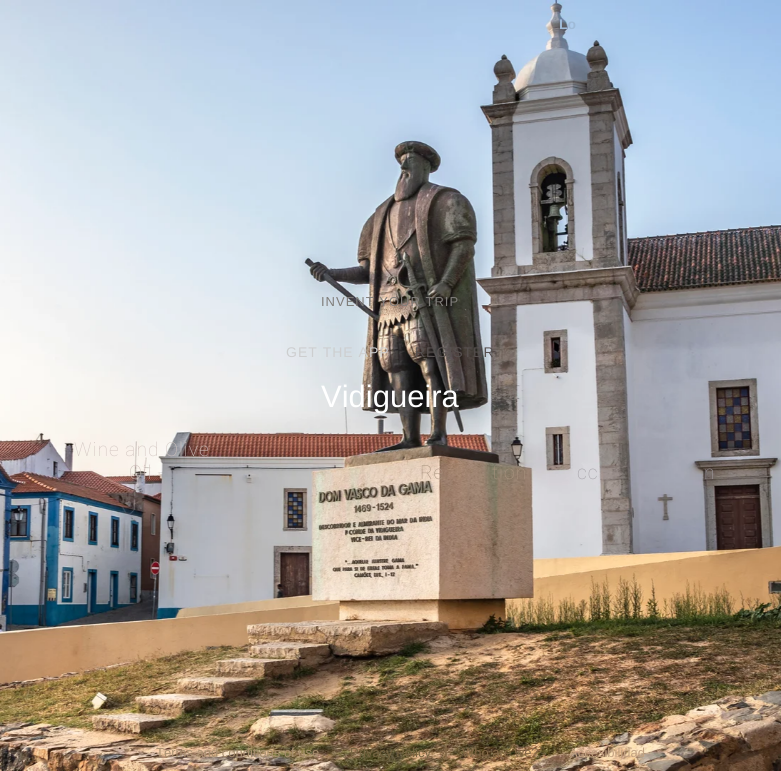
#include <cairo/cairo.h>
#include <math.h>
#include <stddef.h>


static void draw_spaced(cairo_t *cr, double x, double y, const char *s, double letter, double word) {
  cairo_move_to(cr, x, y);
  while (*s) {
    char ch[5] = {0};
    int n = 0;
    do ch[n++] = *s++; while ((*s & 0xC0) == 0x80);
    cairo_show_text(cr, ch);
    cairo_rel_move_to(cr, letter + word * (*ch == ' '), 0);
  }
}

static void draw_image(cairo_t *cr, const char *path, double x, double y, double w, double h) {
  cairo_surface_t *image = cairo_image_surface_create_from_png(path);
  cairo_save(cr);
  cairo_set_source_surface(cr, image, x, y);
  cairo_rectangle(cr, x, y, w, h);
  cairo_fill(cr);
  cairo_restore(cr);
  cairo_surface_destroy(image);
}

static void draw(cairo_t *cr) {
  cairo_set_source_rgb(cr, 1, 1, 1);
  cairo_paint(cr);
  draw_image(cr, "images/1.png", 0, 0, 781, 771);
  cairo_select_font_face(cr, "Liberation Sans", CAIRO_FONT_SLANT_NORMAL, CAIRO_FONT_WEIGHT_BOLD);
  cairo_set_font_size(cr, 14);
  cairo_set_source_rgb(cr, 159 / 255.0, 186 / 255.0, 215 / 255.0);
  cairo_move_to(cr, 559, 29);
  cairo_show_text(cr, "Lo");
  cairo_select_font_face(cr, "Liberation Sans", CAIRO_FONT_SLANT_NORMAL, CAIRO_FONT_WEIGHT_NORMAL);
  cairo_set_font_size(cr, 13);
  cairo_set_source_rgb(cr, 128 / 255.0, 125 / 255.0, 122 / 255.0);
  draw_spaced(cr, 321, 306, "INVENT YOUR TRIP", 1, 0);
  cairo_set_font_size(cr, 14);
  cairo_set_source_rgb(cr, 205 / 255.0, 206 / 255.0, 207 / 255.0);
  draw_spaced(cr, 286, 357, "GET THE APP", 1, 0);
  cairo_set_source_rgb(cr, 86 / 255.0, 80 / 255.0, 79 / 255.0);
  draw_spaced(cr, 415, 357, "REGISTER", 1, 0);
  cairo_set_font_size(cr, 31);
  cairo_set_source_rgb(cr, 1, 1, 1);
  cairo_move_to(cr, 321, 407);
  cairo_show_text(cr, "Vidigueira");
  cairo_select_font_face(cr, "Roboto Thin", CAIRO_FONT_SLANT_NORMAL, CAIRO_FONT_WEIGHT_NORMAL);
  cairo_set_font_size(cr, 19.25);
  cairo_set_source_rgb(cr, 210 / 255.0, 198 / 255.0, 193 / 255.0);
  draw_spaced(cr, 74, 456, "Wine and Olive", 1, 0);
  cairo_set_source_rgb(cr, 202 / 255.0, 189 / 255.0, 183 / 255.0);
  draw_spaced(cr, 129, 479, "Oil", 1, 0);
  cairo_set_source_rgb(cr, 168 / 255.0, 146 / 255.0, 126 / 255.0);
  draw_spaced(cr, 420, 479, "Re", 1, 0);
  draw_spaced(cr, 492, 479, "tion", 1, 0);
  cairo_set_source_rgb(cr, 162 / 255.0, 159 / 255.0, 165 / 255.0);
  draw_spaced(cr, 577, 479, "cc", 1, 0);
  draw_spaced(cr, 704, 479, "n", 1, 0);
  cairo_select_font_face(cr, "Liberation Sans", CAIRO_FONT_SLANT_NORMAL, CAIRO_FONT_WEIGHT_NORMAL);
  cairo_set_font_size(cr, 13);
  cairo_set_source_rgb(cr, 168 / 255.0, 143 / 255.0, 111 / 255.0);
  cairo_move_to(cr, 156, 757);
  cairo_show_text(cr, "Terms and conditions of use");
  cairo_set_source_rgb(cr, 118 / 255.0, 100 / 255.0, 65 / 255.0);
  cairo_move_to(cr, 350, 757);
  cairo_show_text(cr, "Privacy Policy");
  cairo_set_font_size(cr, 16);
  cairo_set_source_rgb(cr, 130 / 255.0, 103 / 255.0, 70 / 255.0);
  cairo_move_to(cr, 444, 757);
  cairo_show_text(cr, "|");
  cairo_set_font_size(cr, 13);
  cairo_move_to(cr, 462, 757);
  cairo_show_text(cr, "Who are we?");
  cairo_set_source_rgb(cr, 194 / 255.0, 162 / 255.0, 129 / 255.0);
  cairo_move_to(cr, 569, 757);
  cairo_show_text(cr, "Accesibilidad");
}

int main(void) {
  cairo_surface_t *surface = cairo_image_surface_create(CAIRO_FORMAT_RGB24, 781, 771);
  cairo_t *cr = cairo_create(surface);
  cairo_font_options_t *options = cairo_font_options_create();
  cairo_font_options_set_hint_metrics(options, CAIRO_HINT_METRICS_OFF);
  cairo_font_options_set_hint_style(options, CAIRO_HINT_STYLE_NONE);
  cairo_set_font_options(cr, options);
  cairo_set_miter_limit(cr, 4);
  draw(cr);
  cairo_surface_write_to_png(surface, "out.png");
  cairo_font_options_destroy(options);
  cairo_destroy(cr);
  cairo_surface_destroy(surface);
  return 0;
}
